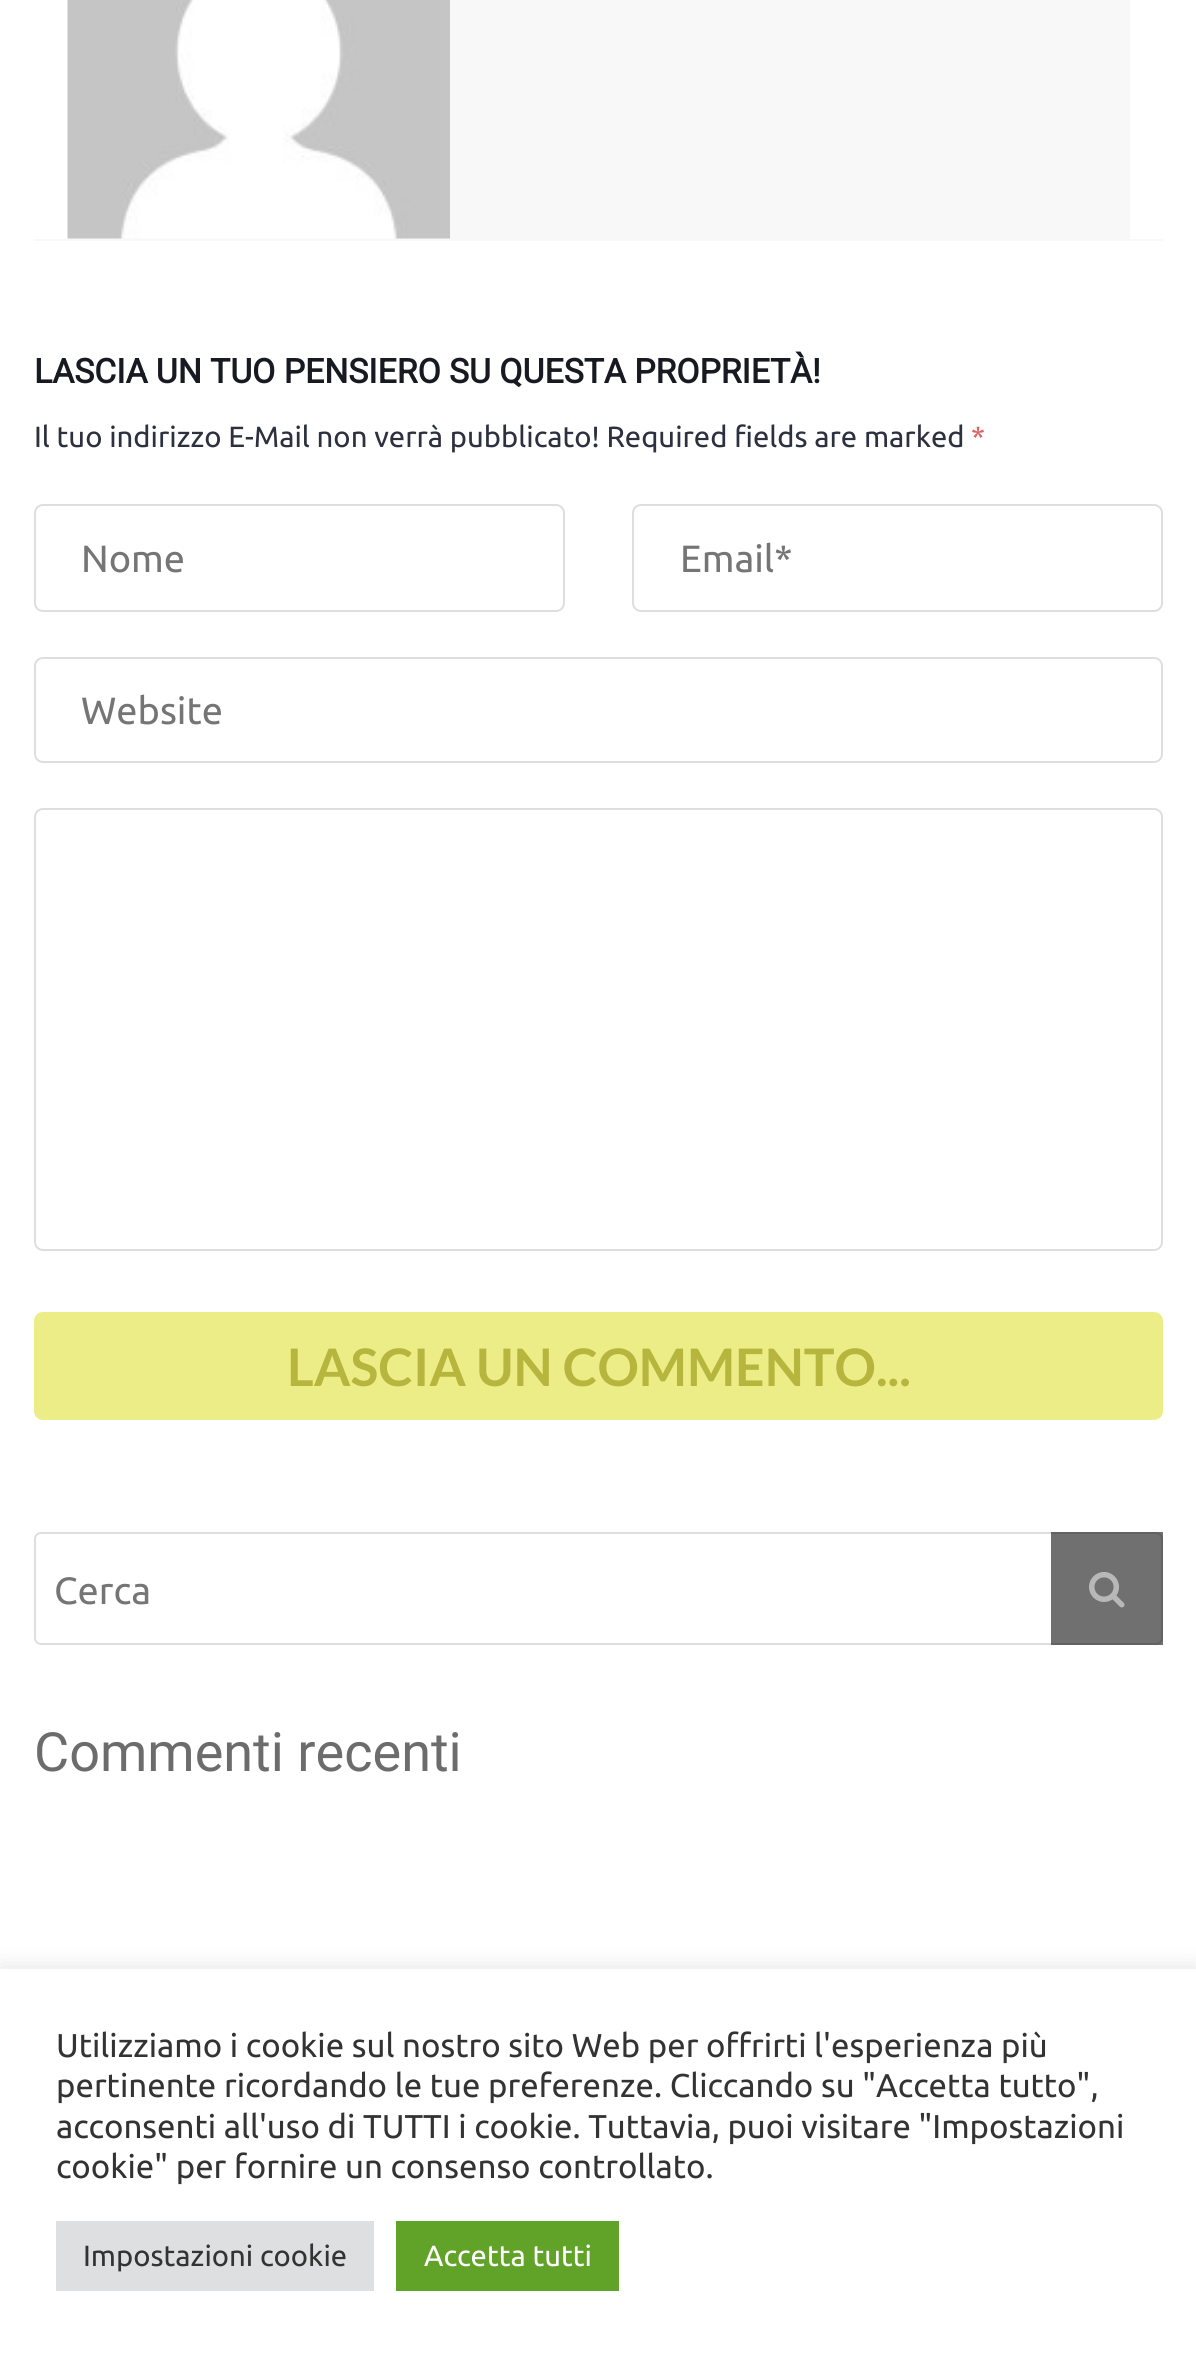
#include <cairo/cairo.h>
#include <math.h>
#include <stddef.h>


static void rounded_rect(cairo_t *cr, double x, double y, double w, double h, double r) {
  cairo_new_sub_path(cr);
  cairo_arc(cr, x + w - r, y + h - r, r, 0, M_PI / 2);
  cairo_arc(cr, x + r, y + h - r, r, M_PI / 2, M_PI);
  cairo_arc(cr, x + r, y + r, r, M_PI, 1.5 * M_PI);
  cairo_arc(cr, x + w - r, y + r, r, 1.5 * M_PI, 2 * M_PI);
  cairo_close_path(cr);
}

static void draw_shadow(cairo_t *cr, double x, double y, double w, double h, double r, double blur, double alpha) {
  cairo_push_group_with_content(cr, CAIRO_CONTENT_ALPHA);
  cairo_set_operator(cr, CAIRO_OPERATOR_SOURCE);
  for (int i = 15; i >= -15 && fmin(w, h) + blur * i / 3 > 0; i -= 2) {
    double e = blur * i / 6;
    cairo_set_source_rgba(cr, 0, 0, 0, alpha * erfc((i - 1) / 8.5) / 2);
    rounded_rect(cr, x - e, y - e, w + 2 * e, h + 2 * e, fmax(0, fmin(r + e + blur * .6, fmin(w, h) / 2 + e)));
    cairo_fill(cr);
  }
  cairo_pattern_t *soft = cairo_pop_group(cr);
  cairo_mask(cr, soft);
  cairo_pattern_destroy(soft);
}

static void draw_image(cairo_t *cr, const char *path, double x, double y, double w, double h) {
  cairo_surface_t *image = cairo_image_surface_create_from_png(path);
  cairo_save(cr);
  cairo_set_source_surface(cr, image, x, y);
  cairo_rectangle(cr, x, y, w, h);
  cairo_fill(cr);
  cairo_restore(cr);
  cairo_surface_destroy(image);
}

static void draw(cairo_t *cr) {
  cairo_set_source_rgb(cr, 1, 1, 1);
  cairo_paint(cr);
  cairo_set_source_rgb(cr, 248 / 255.0, 248 / 255.0, 248 / 255.0);
  cairo_rectangle(cr, 34, 239, 1129, 2);
  cairo_fill(cr);
  cairo_rectangle(cr, 68, 0, 1062, 239);
  cairo_fill(cr);
  draw_image(cr, "images/1.png", 67, 0, 383, 239);
  rounded_rect(cr, 35, 505, 529, 106, 8);
  cairo_set_source_rgb(cr, 222 / 255.0, 222 / 255.0, 222 / 255.0);
  cairo_stroke(cr);
  rounded_rect(cr, 633, 505, 529, 106, 8);
  cairo_stroke(cr);
  rounded_rect(cr, 35, 658, 1127, 104, 8);
  cairo_stroke(cr);
  rounded_rect(cr, 35, 809, 1127, 441, 8);
  cairo_stroke(cr);
  cairo_set_source_rgb(cr, 237 / 255.0, 237 / 255.0, 135 / 255.0);
  rounded_rect(cr, 35, 1313, 1127, 106, 8);
  cairo_fill_preserve(cr);
  cairo_stroke(cr);
  rounded_rect(cr, 35, 1533, 1127, 111, 6);
  cairo_set_source_rgb(cr, 222 / 255.0, 222 / 255.0, 222 / 255.0);
  cairo_stroke(cr);
  cairo_set_source_rgba(cr, 0, 0, 0, 0.56);
  cairo_rectangle(cr, 1051, 1532, 112, 113);
  cairo_fill(cr);
  draw_image(cr, "images/2.png", 1089, 1572, 36, 36);
  cairo_set_source_rgb(cr, 172 / 255.0, 171 / 255.0, 171 / 255.0);
  draw_shadow(cr, 0, 1967, 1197, 389, 0, 11, 0.3);
  cairo_set_source_rgb(cr, 1, 1, 1);
  cairo_rectangle(cr, 0, 1969, 1196, 387);
  cairo_fill(cr);
  cairo_set_source_rgb(cr, 222 / 255.0, 223 / 255.0, 224 / 255.0);
  cairo_rectangle(cr, 56, 2221, 318, 70);
  cairo_fill(cr);
  cairo_set_source_rgb(cr, 97 / 255.0, 162 / 255.0, 41 / 255.0);
  cairo_rectangle(cr, 396, 2221, 223, 70);
  cairo_fill(cr);
  cairo_select_font_face(cr, "Roboto", CAIRO_FONT_SLANT_NORMAL, CAIRO_FONT_WEIGHT_BOLD);
  cairo_set_font_size(cr, 33.75);
  cairo_set_source_rgb(cr, 24 / 255.0, 26 / 255.0, 33 / 255.0);
  cairo_move_to(cr, 34, 383);
  cairo_show_text(cr, "LASCIA UN TUO PENSIERO SU QUESTA PROPRIETÀ!");
  cairo_select_font_face(cr, "Ubuntu", CAIRO_FONT_SLANT_NORMAL, CAIRO_FONT_WEIGHT_NORMAL);
  cairo_set_font_size(cr, 29.25);
  cairo_set_source_rgb(cr, 45 / 255.0, 49 / 255.0, 63 / 255.0);
  cairo_move_to(cr, 34, 447);
  cairo_show_text(cr, "Il tuo indirizzo E-Mail non verrà pubblicato! Required fields are marked");
  cairo_set_source_rgb(cr, 221 / 255.0, 97 / 255.0, 97 / 255.0);
  cairo_move_to(cr, 971, 447);
  cairo_show_text(cr, "*");
  cairo_set_font_size(cr, 38);
  cairo_set_source_rgb(cr, 117 / 255.0, 117 / 255.0, 117 / 255.0);
  cairo_move_to(cr, 81, 572);
  cairo_show_text(cr, "Nome");
  cairo_move_to(cr, 680, 572);
  cairo_show_text(cr, "Email*");
  cairo_move_to(cr, 81, 724);
  cairo_show_text(cr, "Website");
  cairo_select_font_face(cr, "Lato", CAIRO_FONT_SLANT_NORMAL, CAIRO_FONT_WEIGHT_BOLD);
  cairo_set_font_size(cr, 51.75);
  cairo_set_source_rgb(cr, 182 / 255.0, 182 / 255.0, 63 / 255.0);
  cairo_move_to(cr, 287, 1386);
  cairo_show_text(cr, "LASCIA UN COMMENTO...");
  cairo_select_font_face(cr, "Ubuntu", CAIRO_FONT_SLANT_NORMAL, CAIRO_FONT_WEIGHT_NORMAL);
  cairo_set_font_size(cr, 38);
  cairo_set_source_rgb(cr, 117 / 255.0, 117 / 255.0, 117 / 255.0);
  cairo_move_to(cr, 54, 1604);
  cairo_show_text(cr, "Cerca");
  cairo_select_font_face(cr, "Roboto", CAIRO_FONT_SLANT_NORMAL, CAIRO_FONT_WEIGHT_NORMAL);
  cairo_set_font_size(cr, 54);
  cairo_set_source_rgb(cr, 108 / 255.0, 108 / 255.0, 108 / 255.0);
  cairo_move_to(cr, 34, 1771);
  cairo_show_text(cr, "Commenti recenti");
  cairo_select_font_face(cr, "Ubuntu", CAIRO_FONT_SLANT_NORMAL, CAIRO_FONT_WEIGHT_NORMAL);
  cairo_set_font_size(cr, 33);
  cairo_set_source_rgb(cr, 51 / 255.0, 51 / 255.0, 51 / 255.0);
  cairo_move_to(cr, 56, 2057);
  cairo_show_text(cr, "Utilizziamo i cookie sul nostro sito Web per offrirti l'esperienza più");
  cairo_move_to(cr, 56, 2097);
  cairo_show_text(cr, "pertinente ricordando le tue preferenze. Cliccando su \"Accetta tutto\",");
  cairo_move_to(cr, 56, 2138);
  cairo_show_text(cr, "acconsenti all'uso di TUTTI i cookie. Tuttavia, puoi visitare \"Impostazioni");
  cairo_move_to(cr, 56, 2178);
  cairo_show_text(cr, "cookie\" per fornire un consenso controllato.");
  cairo_set_font_size(cr, 29.25);
  cairo_move_to(cr, 83, 2266);
  cairo_show_text(cr, "Impostazioni cookie");
  cairo_set_source_rgb(cr, 1, 1, 1);
  cairo_move_to(cr, 424, 2266);
  cairo_show_text(cr, "Accetta tutti");
}

int main(void) {
  cairo_surface_t *surface = cairo_image_surface_create(CAIRO_FORMAT_RGB24, 1196, 2356);
  cairo_t *cr = cairo_create(surface);
  cairo_font_options_t *options = cairo_font_options_create();
  cairo_font_options_set_hint_metrics(options, CAIRO_HINT_METRICS_OFF);
  cairo_font_options_set_hint_style(options, CAIRO_HINT_STYLE_NONE);
  cairo_set_font_options(cr, options);
  cairo_set_miter_limit(cr, 4);
  draw(cr);
  cairo_surface_write_to_png(surface, "out.png");
  cairo_font_options_destroy(options);
  cairo_destroy(cr);
  cairo_surface_destroy(surface);
  return 0;
}
